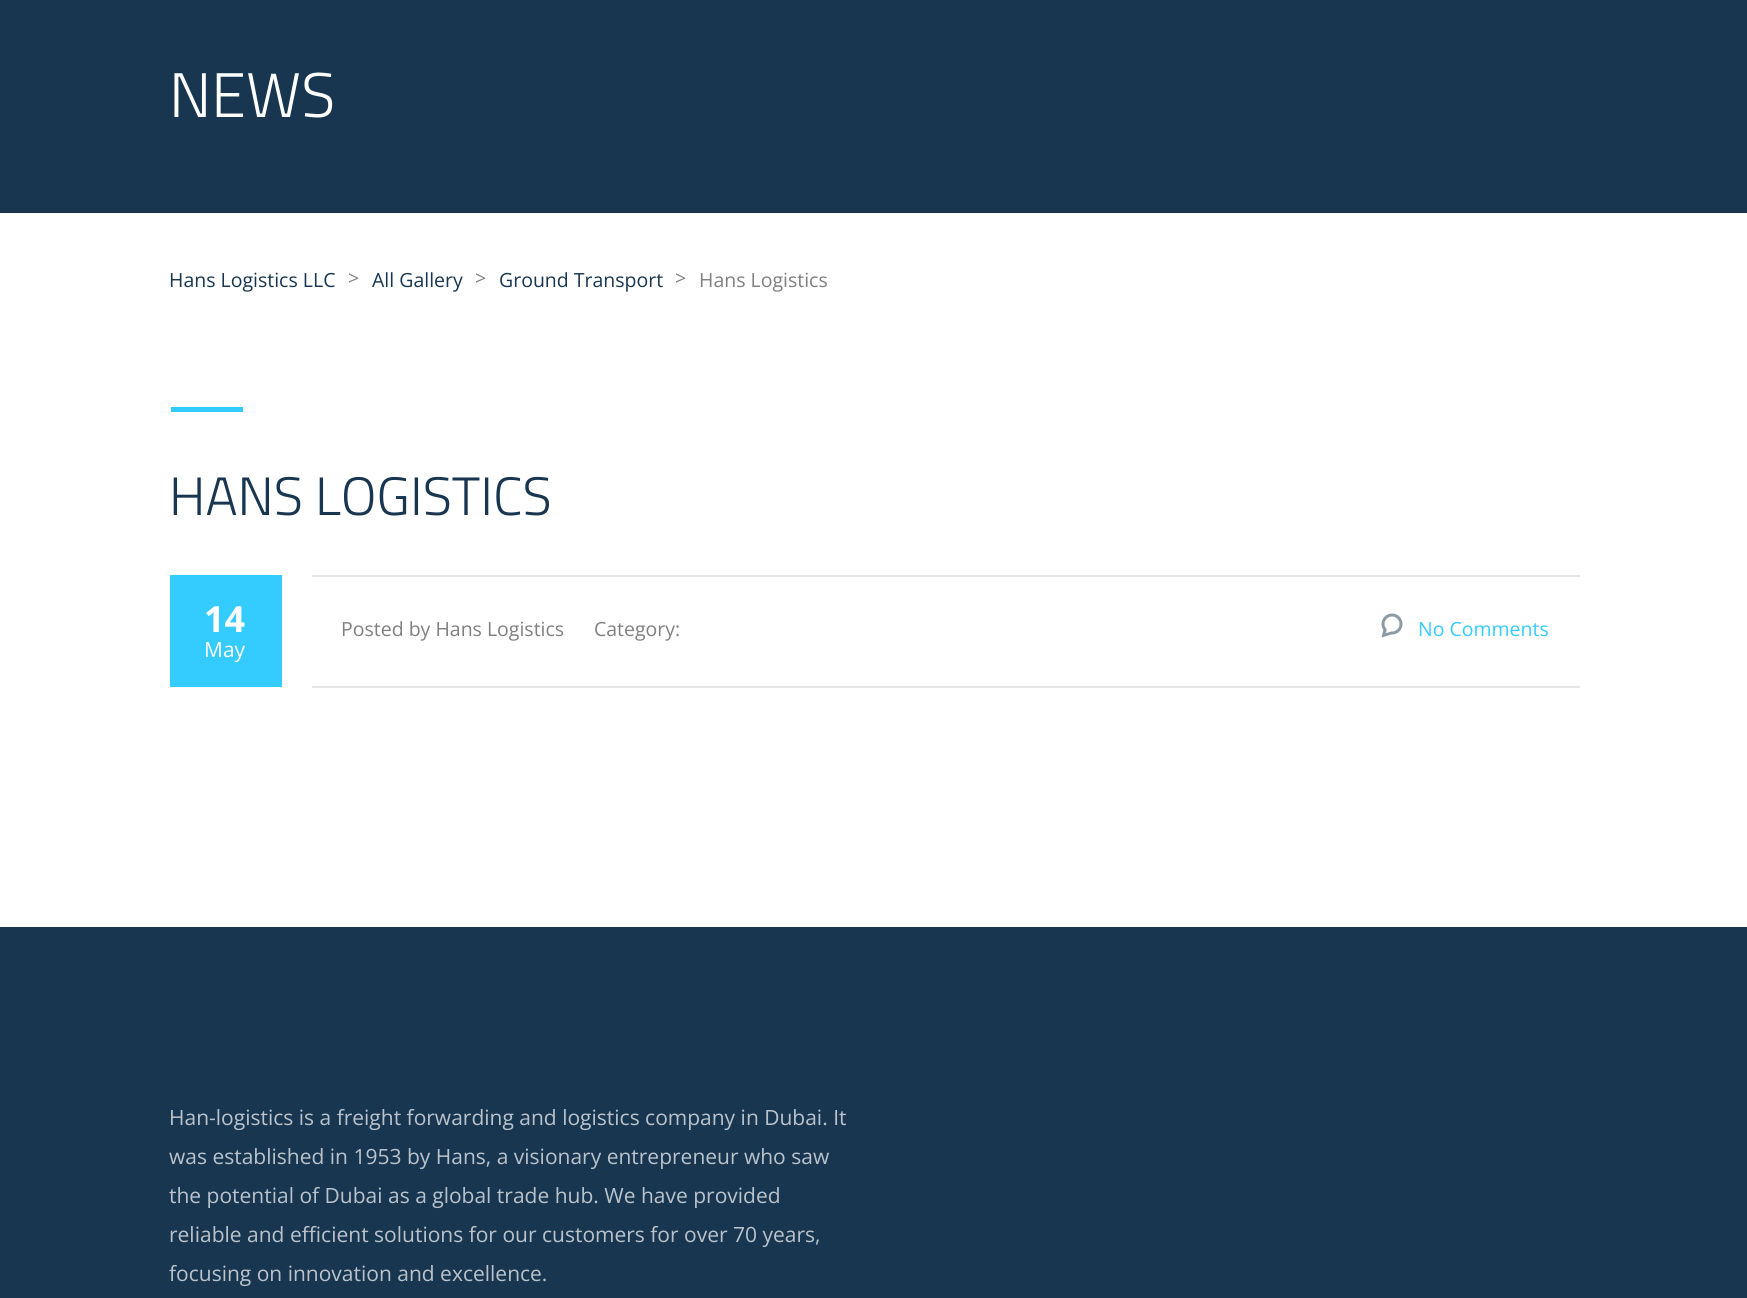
#include <cairo/cairo.h>
#include <math.h>
#include <stddef.h>


static void draw_image(cairo_t *cr, const char *path, double x, double y, double w, double h) {
  cairo_surface_t *image = cairo_image_surface_create_from_png(path);
  cairo_save(cr);
  cairo_set_source_surface(cr, image, x, y);
  cairo_rectangle(cr, x, y, w, h);
  cairo_fill(cr);
  cairo_restore(cr);
  cairo_surface_destroy(image);
}

static void draw(cairo_t *cr) {
  cairo_set_source_rgb(cr, 1, 1, 1);
  cairo_paint(cr);
  cairo_set_source_rgb(cr, 24 / 255.0, 54 / 255.0, 80 / 255.0);
  cairo_rectangle(cr, 0, 0, 1747, 213);
  cairo_fill(cr);
  cairo_set_source_rgb(cr, 52 / 255.0, 204 / 255.0, 1);
  cairo_rectangle(cr, 171, 407, 72, 5);
  cairo_fill(cr);
  cairo_rectangle(cr, 170, 575, 112, 112);
  cairo_fill(cr);
  cairo_set_source_rgb(cr, 230 / 255.0, 230 / 255.0, 230 / 255.0);
  cairo_rectangle(cr, 312, 575, 1268, 2);
  cairo_fill(cr);
  cairo_rectangle(cr, 312, 686, 1268, 2);
  cairo_fill(cr);
  draw_image(cr, "images/1.png", 1381, 613, 22, 25);
  cairo_set_source_rgb(cr, 24 / 255.0, 54 / 255.0, 80 / 255.0);
  cairo_rectangle(cr, 0, 927, 1747, 371);
  cairo_fill(cr);
  cairo_select_font_face(cr, "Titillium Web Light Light", CAIRO_FONT_SLANT_NORMAL, CAIRO_FONT_WEIGHT_NORMAL);
  cairo_set_font_size(cr, 63);
  cairo_set_source_rgb(cr, 1, 1, 1);
  cairo_move_to(cr, 169, 117);
  cairo_show_text(cr, "NEWS");
  cairo_select_font_face(cr, "Open Sans", CAIRO_FONT_SLANT_NORMAL, CAIRO_FONT_WEIGHT_NORMAL);
  cairo_set_font_size(cr, 19.5);
  cairo_set_source_rgb(cr, 24 / 255.0, 54 / 255.0, 80 / 255.0);
  cairo_move_to(cr, 169, 287);
  cairo_show_text(cr, "Hans Logistics LLC");
  cairo_set_source_rgb(cr, 128 / 255.0, 128 / 255.0, 128 / 255.0);
  cairo_move_to(cr, 348, 285);
  cairo_show_text(cr, ">");
  cairo_set_source_rgb(cr, 24 / 255.0, 54 / 255.0, 80 / 255.0);
  cairo_move_to(cr, 372, 287);
  cairo_show_text(cr, "All Gallery");
  cairo_set_source_rgb(cr, 128 / 255.0, 128 / 255.0, 128 / 255.0);
  cairo_move_to(cr, 475, 285);
  cairo_show_text(cr, ">");
  cairo_set_source_rgb(cr, 24 / 255.0, 54 / 255.0, 80 / 255.0);
  cairo_move_to(cr, 499, 287);
  cairo_show_text(cr, "Ground Transport");
  cairo_set_source_rgb(cr, 128 / 255.0, 128 / 255.0, 128 / 255.0);
  cairo_move_to(cr, 675, 285);
  cairo_show_text(cr, ">");
  cairo_move_to(cr, 699, 287);
  cairo_show_text(cr, "Hans Logistics");
  cairo_select_font_face(cr, "Titillium Web Light Light", CAIRO_FONT_SLANT_NORMAL, CAIRO_FONT_WEIGHT_NORMAL);
  cairo_set_font_size(cr, 54);
  cairo_set_source_rgb(cr, 24 / 255.0, 54 / 255.0, 80 / 255.0);
  cairo_move_to(cr, 169, 515);
  cairo_show_text(cr, "HANS LOGISTICS");
  cairo_select_font_face(cr, "Open Sans", CAIRO_FONT_SLANT_NORMAL, CAIRO_FONT_WEIGHT_BOLD);
  cairo_set_font_size(cr, 36);
  cairo_set_source_rgb(cr, 1, 1, 1);
  cairo_move_to(cr, 204, 632);
  cairo_show_text(cr, "14");
  cairo_select_font_face(cr, "Open Sans", CAIRO_FONT_SLANT_NORMAL, CAIRO_FONT_WEIGHT_NORMAL);
  cairo_set_font_size(cr, 21);
  cairo_move_to(cr, 204, 657);
  cairo_show_text(cr, "May");
  cairo_set_font_size(cr, 19.5);
  cairo_set_source_rgb(cr, 128 / 255.0, 128 / 255.0, 128 / 255.0);
  cairo_move_to(cr, 341, 636);
  cairo_show_text(cr, "Posted by Hans Logistics");
  cairo_move_to(cr, 594, 636);
  cairo_show_text(cr, "Category:");
  cairo_set_source_rgb(cr, 52 / 255.0, 204 / 255.0, 1);
  cairo_move_to(cr, 1418, 636);
  cairo_show_text(cr, "No Comments");
  cairo_set_font_size(cr, 21);
  cairo_set_source_rgb(cr, 186 / 255.0, 195 / 255.0, 203 / 255.0);
  cairo_move_to(cr, 169, 1125);
  cairo_show_text(cr, "Han-logistics is a freight forwarding and logistics company in Dubai. It");
  cairo_move_to(cr, 169, 1164);
  cairo_show_text(cr, "was established in 1953 by Hans, a visionary entrepreneur who saw");
  cairo_move_to(cr, 169, 1203);
  cairo_show_text(cr, "the potential of Dubai as a global trade hub. We have provided");
  cairo_move_to(cr, 169, 1242);
  cairo_show_text(cr, "reliable and efficient solutions for our customers for over 70 years,");
  cairo_move_to(cr, 169, 1281);
  cairo_show_text(cr, "focusing on innovation and excellence.");
}

int main(void) {
  cairo_surface_t *surface = cairo_image_surface_create(CAIRO_FORMAT_RGB24, 1747, 1298);
  cairo_t *cr = cairo_create(surface);
  cairo_font_options_t *options = cairo_font_options_create();
  cairo_font_options_set_hint_metrics(options, CAIRO_HINT_METRICS_OFF);
  cairo_font_options_set_hint_style(options, CAIRO_HINT_STYLE_NONE);
  cairo_set_font_options(cr, options);
  cairo_set_miter_limit(cr, 4);
  draw(cr);
  cairo_surface_write_to_png(surface, "out.png");
  cairo_font_options_destroy(options);
  cairo_destroy(cr);
  cairo_surface_destroy(surface);
  return 0;
}
